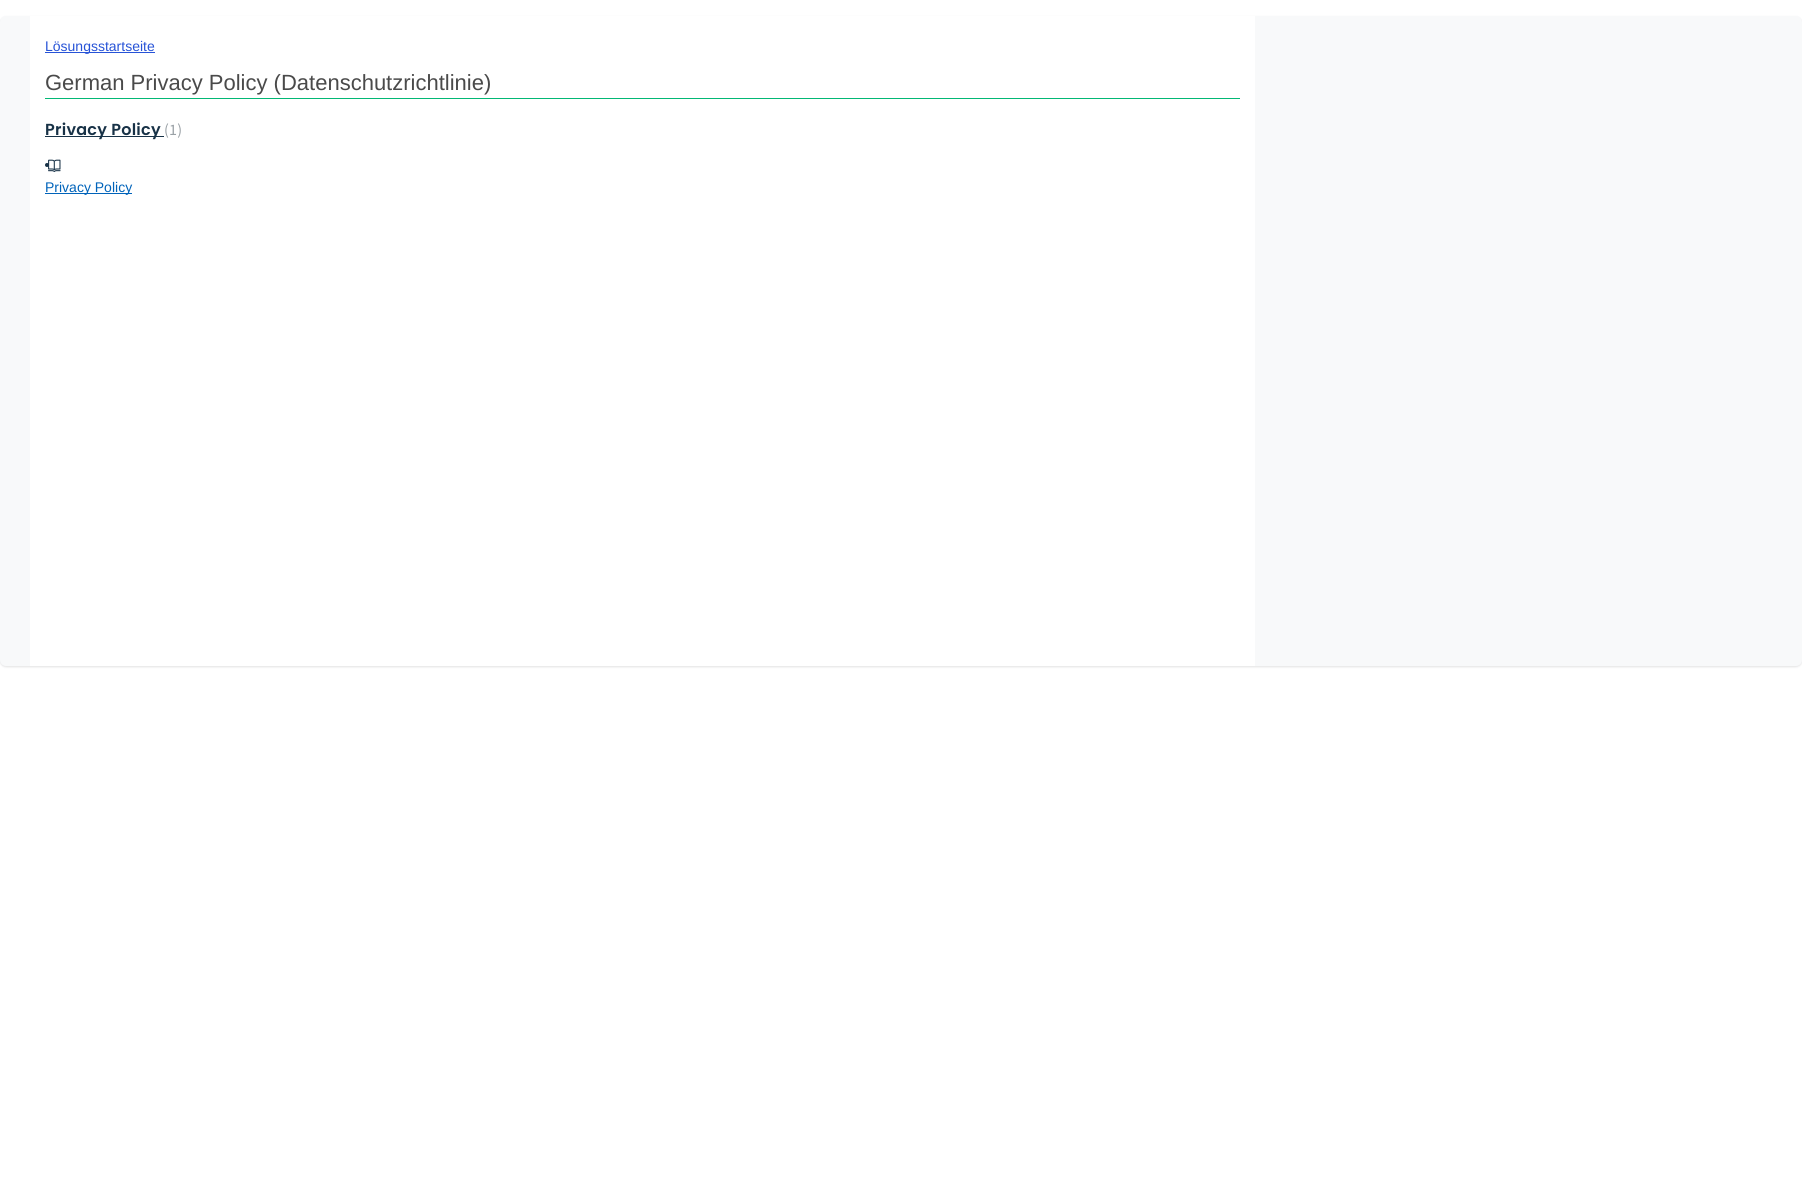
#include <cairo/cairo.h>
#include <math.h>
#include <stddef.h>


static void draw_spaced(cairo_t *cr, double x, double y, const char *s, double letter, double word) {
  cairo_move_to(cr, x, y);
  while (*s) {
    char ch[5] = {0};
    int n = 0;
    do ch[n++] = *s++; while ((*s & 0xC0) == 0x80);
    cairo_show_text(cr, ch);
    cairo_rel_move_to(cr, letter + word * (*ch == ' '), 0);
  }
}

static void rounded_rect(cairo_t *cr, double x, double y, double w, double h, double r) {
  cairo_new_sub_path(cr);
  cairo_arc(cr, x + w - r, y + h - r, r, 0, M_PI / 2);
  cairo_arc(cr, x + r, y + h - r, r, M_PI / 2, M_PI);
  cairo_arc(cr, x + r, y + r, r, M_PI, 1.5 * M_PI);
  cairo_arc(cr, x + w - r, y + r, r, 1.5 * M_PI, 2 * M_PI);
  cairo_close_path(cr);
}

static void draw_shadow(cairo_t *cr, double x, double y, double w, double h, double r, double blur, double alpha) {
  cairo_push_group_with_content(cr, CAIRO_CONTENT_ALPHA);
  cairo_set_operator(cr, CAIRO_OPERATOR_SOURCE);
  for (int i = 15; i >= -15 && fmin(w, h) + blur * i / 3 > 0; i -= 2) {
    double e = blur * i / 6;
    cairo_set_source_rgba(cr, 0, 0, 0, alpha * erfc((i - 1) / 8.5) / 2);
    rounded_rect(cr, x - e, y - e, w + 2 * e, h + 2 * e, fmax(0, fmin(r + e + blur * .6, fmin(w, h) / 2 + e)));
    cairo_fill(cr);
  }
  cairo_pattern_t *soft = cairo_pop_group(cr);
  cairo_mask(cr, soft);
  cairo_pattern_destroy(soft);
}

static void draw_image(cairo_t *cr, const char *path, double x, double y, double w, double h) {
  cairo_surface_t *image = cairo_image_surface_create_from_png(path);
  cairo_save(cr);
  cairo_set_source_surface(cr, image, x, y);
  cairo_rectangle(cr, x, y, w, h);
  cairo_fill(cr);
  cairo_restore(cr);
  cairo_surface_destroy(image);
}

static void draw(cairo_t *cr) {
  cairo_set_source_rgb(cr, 1, 1, 1);
  cairo_paint(cr);
  cairo_set_source_rgb(cr, 63 / 255.0, 63 / 255.0, 68 / 255.0);
  draw_shadow(cr, 0, 17, 1802, 650, 6, 1, 0.15);
  cairo_set_source_rgb(cr, 248 / 255.0, 249 / 255.0, 250 / 255.0);
  rounded_rect(cr, 0, 16, 1802, 650, 6);
  cairo_fill(cr);
  cairo_set_source_rgb(cr, 1, 1, 1);
  cairo_rectangle(cr, 30, 16, 1225, 650);
  cairo_fill(cr);
  cairo_set_source_rgb(cr, 39 / 255.0, 83 / 255.0, 215 / 255.0);
  cairo_rectangle(cr, 45, 52, 110, 1);
  cairo_fill(cr);
  cairo_set_source_rgb(cr, 2 / 255.0, 184 / 255.0, 117 / 255.0);
  cairo_rectangle(cr, 45, 98, 1195, 1);
  cairo_fill(cr);
  cairo_set_source_rgb(cr, 24 / 255.0, 50 / 255.0, 71 / 255.0);
  cairo_rectangle(cr, 45, 136, 119, 1);
  cairo_fill(cr);
  cairo_arc(cr, 47, 165, 2, 0, 2 * M_PI);
  cairo_fill(cr);
  draw_image(cr, "images/1.png", 48, 159, 13, 13);
  cairo_set_source_rgb(cr, 0, 99 / 255.0, 186 / 255.0);
  cairo_rectangle(cr, 45, 193, 87, 1);
  cairo_fill(cr);
  cairo_select_font_face(cr, "Liberation Sans", CAIRO_FONT_SLANT_NORMAL, CAIRO_FONT_WEIGHT_NORMAL);
  cairo_set_font_size(cr, 14);
  cairo_set_source_rgb(cr, 39 / 255.0, 83 / 255.0, 215 / 255.0);
  cairo_move_to(cr, 45, 51);
  cairo_show_text(cr, "Lösungsstartseite");
  cairo_set_font_size(cr, 22);
  cairo_set_source_rgb(cr, 74 / 255.0, 74 / 255.0, 74 / 255.0);
  cairo_move_to(cr, 45, 90);
  cairo_show_text(cr, "German Privacy Policy (Datenschutzrichtlinie)");
  cairo_select_font_face(cr, "Poppins SemiBold", CAIRO_FONT_SLANT_NORMAL, CAIRO_FONT_WEIGHT_NORMAL);
  cairo_set_font_size(cr, 16);
  cairo_set_source_rgb(cr, 24 / 255.0, 50 / 255.0, 71 / 255.0);
  draw_spaced(cr, 45, 135, "Privacy Policy", 0.25, 0);
  cairo_select_font_face(cr, "Source Sans Pro", CAIRO_FONT_SLANT_NORMAL, CAIRO_FONT_WEIGHT_NORMAL);
  cairo_set_source_rgb(cr, 154 / 255.0, 161 / 255.0, 166 / 255.0);
  draw_spaced(cr, 164, 135, "(1)", 0.25, 0);
  cairo_select_font_face(cr, "Liberation Sans", CAIRO_FONT_SLANT_NORMAL, CAIRO_FONT_WEIGHT_NORMAL);
  cairo_set_font_size(cr, 14);
  cairo_set_source_rgb(cr, 0, 99 / 255.0, 186 / 255.0);
  cairo_move_to(cr, 45, 192);
  cairo_show_text(cr, "Privacy Policy");
}

int main(void) {
  cairo_surface_t *surface = cairo_image_surface_create(CAIRO_FORMAT_RGB24, 1802, 1203);
  cairo_t *cr = cairo_create(surface);
  cairo_font_options_t *options = cairo_font_options_create();
  cairo_font_options_set_hint_metrics(options, CAIRO_HINT_METRICS_OFF);
  cairo_font_options_set_hint_style(options, CAIRO_HINT_STYLE_NONE);
  cairo_set_font_options(cr, options);
  cairo_set_miter_limit(cr, 4);
  draw(cr);
  cairo_surface_write_to_png(surface, "out.png");
  cairo_font_options_destroy(options);
  cairo_destroy(cr);
  cairo_surface_destroy(surface);
  return 0;
}
